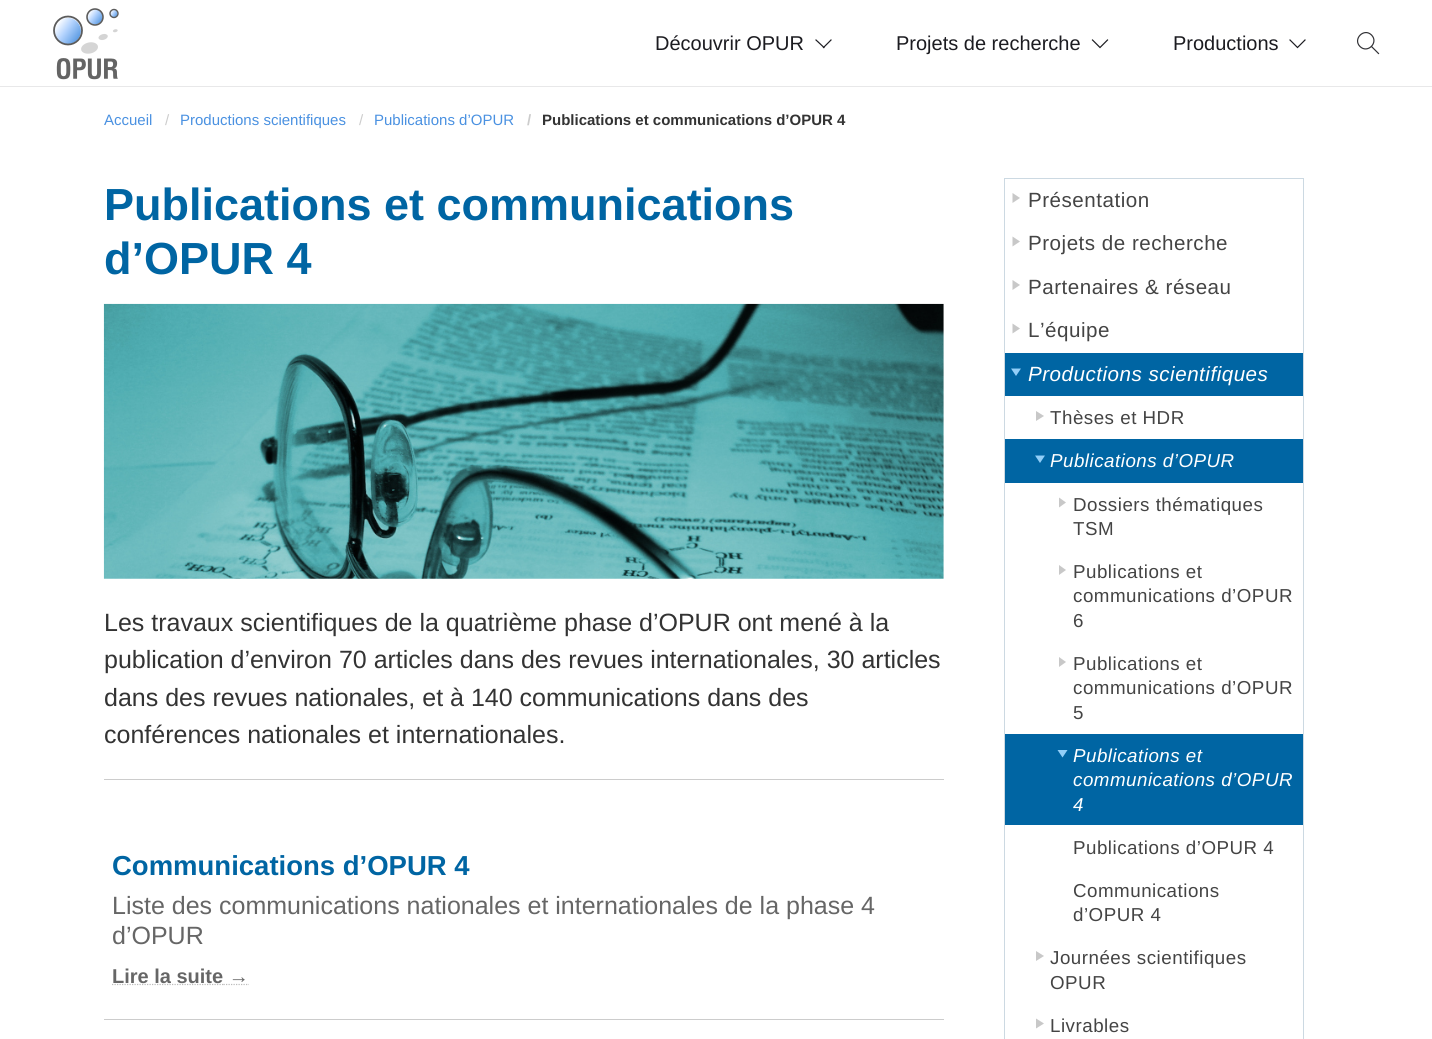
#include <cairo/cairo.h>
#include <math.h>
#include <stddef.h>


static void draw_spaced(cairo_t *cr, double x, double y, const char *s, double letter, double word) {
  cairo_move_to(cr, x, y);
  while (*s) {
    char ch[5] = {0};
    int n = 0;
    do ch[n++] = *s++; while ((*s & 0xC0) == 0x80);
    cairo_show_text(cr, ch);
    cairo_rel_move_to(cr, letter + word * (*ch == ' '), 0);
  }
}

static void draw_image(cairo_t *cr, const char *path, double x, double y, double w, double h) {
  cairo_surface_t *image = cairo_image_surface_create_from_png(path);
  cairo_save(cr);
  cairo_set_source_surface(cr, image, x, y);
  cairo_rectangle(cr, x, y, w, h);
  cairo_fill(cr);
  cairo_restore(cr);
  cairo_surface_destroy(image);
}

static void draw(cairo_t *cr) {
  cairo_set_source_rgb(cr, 1, 1, 1);
  cairo_paint(cr);
  cairo_set_source_rgb(cr, 232 / 255.0, 232 / 255.0, 233 / 255.0);
  cairo_rectangle(cr, 0, 86, 1432, 1);
  cairo_fill(cr);
  draw_image(cr, "images/1.png", 53, 8, 66, 72);
  cairo_new_path(cr);
  cairo_move_to(cr, 816, 40);
  cairo_line_to(cr, 824, 47.5);
  cairo_move_to(cr, 831, 40);
  cairo_line_to(cr, 823.5, 47.5);
  cairo_set_source_rgb(cr, 28 / 255.0, 28 / 255.0, 33 / 255.0);
  cairo_set_line_width(cr, 1.2);
  cairo_set_line_cap(cr, CAIRO_LINE_CAP_SQUARE);
  cairo_stroke(cr);
  cairo_new_path(cr);
  cairo_move_to(cr, 1092.5, 40);
  cairo_line_to(cr, 1100, 47.5);
  cairo_move_to(cr, 1107.5, 40);
  cairo_line_to(cr, 1100, 47.5);
  cairo_stroke(cr);
  cairo_new_path(cr);
  cairo_move_to(cr, 1290, 40);
  cairo_line_to(cr, 1297.5, 47.5);
  cairo_move_to(cr, 1305, 40);
  cairo_line_to(cr, 1297.5, 47.5);
  cairo_stroke(cr);
  cairo_new_path(cr);
  cairo_move_to(cr, 1371.5, 46.5);
  cairo_line_to(cr, 1378.5, 53.5);
  cairo_move_to(cr, 1371.5, 35);
  cairo_curve_to(cr, 1379, 42.5, 1367.5, 54, 1360, 46.5);
  cairo_curve_to(cr, 1352.5, 39, 1364, 27.5, 1371.5, 35);
  cairo_set_source_rgb(cr, 49 / 255.0, 49 / 255.0, 53 / 255.0);
  cairo_stroke(cr);
  draw_image(cr, "images/2.png", 103, 303, 841, 276);
  cairo_set_source_rgb(cr, 204 / 255.0, 204 / 255.0, 204 / 255.0);
  cairo_rectangle(cr, 104, 779, 840, 1);
  cairo_fill(cr);
  cairo_new_path(cr);
  cairo_move_to(cr, 112, 984.5);
  cairo_line_to(cr, 223.5, 984.5);
  cairo_set_source_rgb(cr, 187 / 255.0, 187 / 255.0, 187 / 255.0);
  cairo_set_line_cap(cr, CAIRO_LINE_CAP_BUTT);
  cairo_set_dash(cr, (double[]){1.25, 1.25}, 2, 0);
  cairo_stroke(cr);
  cairo_set_source_rgb(cr, 204 / 255.0, 204 / 255.0, 204 / 255.0);
  cairo_rectangle(cr, 104, 1019, 840, 1);
  cairo_fill(cr);
  cairo_rectangle(cr, 1004.5, 178.5, 299, 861);
  cairo_set_source_rgb(cr, 204 / 255.0, 217 / 255.0, 226 / 255.0);
  cairo_set_line_width(cr, 1);
  cairo_set_dash(cr, NULL, 0, 0);
  cairo_stroke(cr);
  cairo_set_source_rgb(cr, 200 / 255.0, 200 / 255.0, 200 / 255.0);
  cairo_new_path(cr);
  cairo_move_to(cr, 1012.5, 203);
  cairo_line_to(cr, 1012.5, 193);
  cairo_line_to(cr, 1020, 198);
  cairo_close_path(cr);
  cairo_fill(cr);
  cairo_new_path(cr);
  cairo_move_to(cr, 1012.5, 246.5);
  cairo_line_to(cr, 1012.5, 236.5);
  cairo_line_to(cr, 1020, 241.5);
  cairo_close_path(cr);
  cairo_fill(cr);
  cairo_new_path(cr);
  cairo_move_to(cr, 1012.5, 290);
  cairo_line_to(cr, 1012.5, 280);
  cairo_line_to(cr, 1020, 285);
  cairo_close_path(cr);
  cairo_fill(cr);
  cairo_new_path(cr);
  cairo_move_to(cr, 1012.5, 333.5);
  cairo_line_to(cr, 1012.5, 323.5);
  cairo_line_to(cr, 1020, 328.5);
  cairo_close_path(cr);
  cairo_fill(cr);
  cairo_set_source_rgb(cr, 0, 101 / 255.0, 163 / 255.0);
  cairo_rectangle(cr, 1005, 353, 298, 43);
  cairo_fill(cr);
  cairo_set_source_rgb(cr, 146 / 255.0, 206 / 255.0, 248 / 255.0);
  cairo_new_path(cr);
  cairo_move_to(cr, 1011, 368.5);
  cairo_line_to(cr, 1021, 368.5);
  cairo_line_to(cr, 1016, 376);
  cairo_close_path(cr);
  cairo_fill(cr);
  cairo_set_source_rgb(cr, 200 / 255.0, 200 / 255.0, 200 / 255.0);
  cairo_new_path(cr);
  cairo_move_to(cr, 1036, 421);
  cairo_line_to(cr, 1036, 411);
  cairo_line_to(cr, 1044, 416);
  cairo_close_path(cr);
  cairo_fill(cr);
  cairo_set_source_rgb(cr, 0, 101 / 255.0, 163 / 255.0);
  cairo_rectangle(cr, 1005, 439, 298, 44);
  cairo_fill(cr);
  cairo_set_source_rgb(cr, 146 / 255.0, 206 / 255.0, 248 / 255.0);
  cairo_new_path(cr);
  cairo_move_to(cr, 1035, 455.5);
  cairo_line_to(cr, 1045, 455.5);
  cairo_line_to(cr, 1040, 463);
  cairo_close_path(cr);
  cairo_fill(cr);
  cairo_set_source_rgb(cr, 200 / 255.0, 200 / 255.0, 200 / 255.0);
  cairo_new_path(cr);
  cairo_move_to(cr, 1059, 507.5);
  cairo_line_to(cr, 1059, 497.5);
  cairo_line_to(cr, 1066, 502.5);
  cairo_close_path(cr);
  cairo_fill(cr);
  cairo_new_path(cr);
  cairo_move_to(cr, 1059, 575);
  cairo_line_to(cr, 1059, 565);
  cairo_line_to(cr, 1066, 570);
  cairo_close_path(cr);
  cairo_fill(cr);
  cairo_new_path(cr);
  cairo_move_to(cr, 1059, 667);
  cairo_line_to(cr, 1059, 657);
  cairo_line_to(cr, 1066, 662);
  cairo_close_path(cr);
  cairo_fill(cr);
  cairo_set_source_rgb(cr, 0, 101 / 255.0, 163 / 255.0);
  cairo_rectangle(cr, 1005, 734, 298, 91);
  cairo_fill(cr);
  cairo_set_source_rgb(cr, 146 / 255.0, 206 / 255.0, 248 / 255.0);
  cairo_new_path(cr);
  cairo_move_to(cr, 1057.5, 750);
  cairo_line_to(cr, 1067.5, 750);
  cairo_line_to(cr, 1062.5, 757.5);
  cairo_close_path(cr);
  cairo_fill(cr);
  cairo_set_source_rgb(cr, 200 / 255.0, 200 / 255.0, 200 / 255.0);
  cairo_new_path(cr);
  cairo_move_to(cr, 1036, 961);
  cairo_line_to(cr, 1036, 951);
  cairo_line_to(cr, 1044, 956);
  cairo_close_path(cr);
  cairo_fill(cr);
  cairo_new_path(cr);
  cairo_move_to(cr, 1036, 1028.5);
  cairo_line_to(cr, 1036, 1018.5);
  cairo_line_to(cr, 1044, 1023.5);
  cairo_close_path(cr);
  cairo_fill(cr);
  cairo_select_font_face(cr, "Liberation Sans", CAIRO_FONT_SLANT_NORMAL, CAIRO_FONT_WEIGHT_NORMAL);
  cairo_set_font_size(cr, 20);
  cairo_set_source_rgb(cr, 28 / 255.0, 28 / 255.0, 33 / 255.0);
  cairo_move_to(cr, 655, 50);
  cairo_show_text(cr, "Découvrir OPUR");
  cairo_move_to(cr, 896, 50);
  cairo_show_text(cr, "Projets de recherche");
  cairo_move_to(cr, 1173, 50);
  cairo_show_text(cr, "Productions");
  cairo_set_font_size(cr, 15);
  cairo_set_source_rgb(cr, 74 / 255.0, 145 / 255.0, 225 / 255.0);
  cairo_move_to(cr, 104, 125);
  cairo_show_text(cr, "Accueil");
  cairo_set_source_rgb(cr, 204 / 255.0, 204 / 255.0, 204 / 255.0);
  cairo_move_to(cr, 165, 125);
  cairo_show_text(cr, "/");
  cairo_set_source_rgb(cr, 74 / 255.0, 145 / 255.0, 225 / 255.0);
  cairo_move_to(cr, 180, 125);
  cairo_show_text(cr, "Productions scientifiques");
  cairo_set_source_rgb(cr, 204 / 255.0, 204 / 255.0, 204 / 255.0);
  cairo_move_to(cr, 359, 125);
  cairo_show_text(cr, "/");
  cairo_set_source_rgb(cr, 74 / 255.0, 145 / 255.0, 225 / 255.0);
  cairo_move_to(cr, 374, 125);
  cairo_show_text(cr, "Publications d’OPUR");
  cairo_select_font_face(cr, "Liberation Sans", CAIRO_FONT_SLANT_NORMAL, CAIRO_FONT_WEIGHT_BOLD);
  cairo_set_source_rgb(cr, 204 / 255.0, 204 / 255.0, 204 / 255.0);
  cairo_move_to(cr, 527, 125);
  cairo_show_text(cr, "/");
  cairo_set_source_rgb(cr, 51 / 255.0, 51 / 255.0, 51 / 255.0);
  cairo_move_to(cr, 542, 125);
  cairo_show_text(cr, "Publications et communications d’OPUR 4");
  cairo_set_font_size(cr, 45);
  cairo_set_source_rgb(cr, 0, 101 / 255.0, 163 / 255.0);
  cairo_move_to(cr, 104, 220);
  cairo_show_text(cr, "Publications et communications");
  cairo_move_to(cr, 104, 274);
  cairo_show_text(cr, "d’OPUR 4");
  cairo_select_font_face(cr, "Liberation Sans", CAIRO_FONT_SLANT_NORMAL, CAIRO_FONT_WEIGHT_NORMAL);
  cairo_set_font_size(cr, 25);
  cairo_set_source_rgb(cr, 51 / 255.0, 51 / 255.0, 51 / 255.0);
  cairo_move_to(cr, 104, 631);
  cairo_show_text(cr, "Les travaux scientifiques de la quatrième phase d’OPUR ont mené à la");
  cairo_move_to(cr, 104, 668);
  cairo_show_text(cr, "publication d’environ 70 articles dans des revues internationales, 30 articles");
  cairo_move_to(cr, 104, 706);
  cairo_show_text(cr, "dans des revues nationales, et à 140 communications dans des");
  cairo_move_to(cr, 104, 743);
  cairo_show_text(cr, "conférences nationales et internationales.");
  cairo_select_font_face(cr, "Liberation Sans", CAIRO_FONT_SLANT_NORMAL, CAIRO_FONT_WEIGHT_BOLD);
  cairo_set_font_size(cr, 27.5);
  cairo_set_source_rgb(cr, 0, 101 / 255.0, 163 / 255.0);
  cairo_move_to(cr, 112, 875);
  cairo_show_text(cr, "Communications d’OPUR 4");
  cairo_select_font_face(cr, "Liberation Sans", CAIRO_FONT_SLANT_NORMAL, CAIRO_FONT_WEIGHT_NORMAL);
  cairo_set_font_size(cr, 25);
  cairo_set_source_rgb(cr, 102 / 255.0, 102 / 255.0, 102 / 255.0);
  cairo_move_to(cr, 112, 914);
  cairo_show_text(cr, "Liste des communications nationales et internationales de la phase 4");
  cairo_move_to(cr, 112, 944);
  cairo_show_text(cr, "d’OPUR");
  cairo_select_font_face(cr, "Liberation Sans", CAIRO_FONT_SLANT_NORMAL, CAIRO_FONT_WEIGHT_BOLD);
  cairo_set_font_size(cr, 20);
  cairo_move_to(cr, 112, 983);
  cairo_show_text(cr, "Lire la suite →");
  cairo_new_path(cr);
  cairo_move_to(cr, 223.5, 984.5);
  cairo_line_to(cr, 249, 984.5);
  cairo_set_source_rgb(cr, 187 / 255.0, 187 / 255.0, 187 / 255.0);
  cairo_set_line_width(cr, 1.2);
  cairo_set_dash(cr, (double[]){1.25, 1.25}, 2, 0);
  cairo_stroke(cr);
  cairo_select_font_face(cr, "Liberation Sans", CAIRO_FONT_SLANT_NORMAL, CAIRO_FONT_WEIGHT_NORMAL);
  cairo_set_font_size(cr, 20.6);
  cairo_set_source_rgb(cr, 68 / 255.0, 68 / 255.0, 68 / 255.0);
  draw_spaced(cr, 1028, 207, "Présentation", 0.5, 0);
  draw_spaced(cr, 1028, 250, "Projets de recherche", 0.5, 0);
  draw_spaced(cr, 1028, 294, "Partenaires & réseau", 0.5, 0);
  draw_spaced(cr, 1028, 337, "L’équipe", 0.5, 0);
  cairo_select_font_face(cr, "Liberation Sans", CAIRO_FONT_SLANT_ITALIC, CAIRO_FONT_WEIGHT_NORMAL);
  cairo_set_source_rgb(cr, 1, 1, 1);
  draw_spaced(cr, 1028, 381, "Productions scientifiques", 0.5, 0);
  cairo_select_font_face(cr, "Liberation Sans", CAIRO_FONT_SLANT_NORMAL, CAIRO_FONT_WEIGHT_NORMAL);
  cairo_set_font_size(cr, 18.75);
  cairo_set_source_rgb(cr, 68 / 255.0, 68 / 255.0, 68 / 255.0);
  draw_spaced(cr, 1050, 424, "Thèses et HDR", 0.5, 0);
  cairo_select_font_face(cr, "Liberation Sans", CAIRO_FONT_SLANT_ITALIC, CAIRO_FONT_WEIGHT_NORMAL);
  cairo_set_source_rgb(cr, 1, 1, 1);
  draw_spaced(cr, 1050, 467, "Publications d’OPUR", 0.5, 0);
  cairo_select_font_face(cr, "Liberation Sans", CAIRO_FONT_SLANT_NORMAL, CAIRO_FONT_WEIGHT_NORMAL);
  cairo_set_source_rgb(cr, 68 / 255.0, 68 / 255.0, 68 / 255.0);
  draw_spaced(cr, 1073, 511, "Dossiers thématiques", 0.5, 0);
  draw_spaced(cr, 1073, 535, "TSM", 0.5, 0);
  draw_spaced(cr, 1073, 578, "Publications et", 0.5, 0);
  draw_spaced(cr, 1073, 602, "communications d’OPUR", 0.5, 0);
  draw_spaced(cr, 1073, 627, "6", 0.5, 0);
  draw_spaced(cr, 1073, 670, "Publications et", 0.5, 0);
  draw_spaced(cr, 1073, 694, "communications d’OPUR", 0.5, 0);
  draw_spaced(cr, 1073, 719, "5", 0.5, 0);
  cairo_select_font_face(cr, "Liberation Sans", CAIRO_FONT_SLANT_ITALIC, CAIRO_FONT_WEIGHT_NORMAL);
  cairo_set_source_rgb(cr, 1, 1, 1);
  draw_spaced(cr, 1073, 762, "Publications et", 0.5, 0);
  draw_spaced(cr, 1073, 786, "communications d’OPUR", 0.5, 0);
  draw_spaced(cr, 1073, 811, "4", 0.5, 0);
  cairo_select_font_face(cr, "Liberation Sans", CAIRO_FONT_SLANT_NORMAL, CAIRO_FONT_WEIGHT_NORMAL);
  cairo_set_source_rgb(cr, 68 / 255.0, 68 / 255.0, 68 / 255.0);
  draw_spaced(cr, 1073, 854, "Publications d’OPUR 4", 0.5, 0);
  draw_spaced(cr, 1073, 897, "Communications", 0.5, 0);
  draw_spaced(cr, 1073, 921, "d’OPUR 4", 0.5, 0);
  draw_spaced(cr, 1050, 964, "Journées scientifiques", 0.5, 0);
  draw_spaced(cr, 1050, 989, "OPUR", 0.5, 0);
  draw_spaced(cr, 1050, 1032, "Livrables", 0.5, 0);
}

int main(void) {
  cairo_surface_t *surface = cairo_image_surface_create(CAIRO_FORMAT_RGB24, 1432, 1039);
  cairo_t *cr = cairo_create(surface);
  cairo_font_options_t *options = cairo_font_options_create();
  cairo_font_options_set_hint_metrics(options, CAIRO_HINT_METRICS_OFF);
  cairo_font_options_set_hint_style(options, CAIRO_HINT_STYLE_NONE);
  cairo_set_font_options(cr, options);
  cairo_set_miter_limit(cr, 4);
  draw(cr);
  cairo_surface_write_to_png(surface, "out.png");
  cairo_font_options_destroy(options);
  cairo_destroy(cr);
  cairo_surface_destroy(surface);
  return 0;
}
